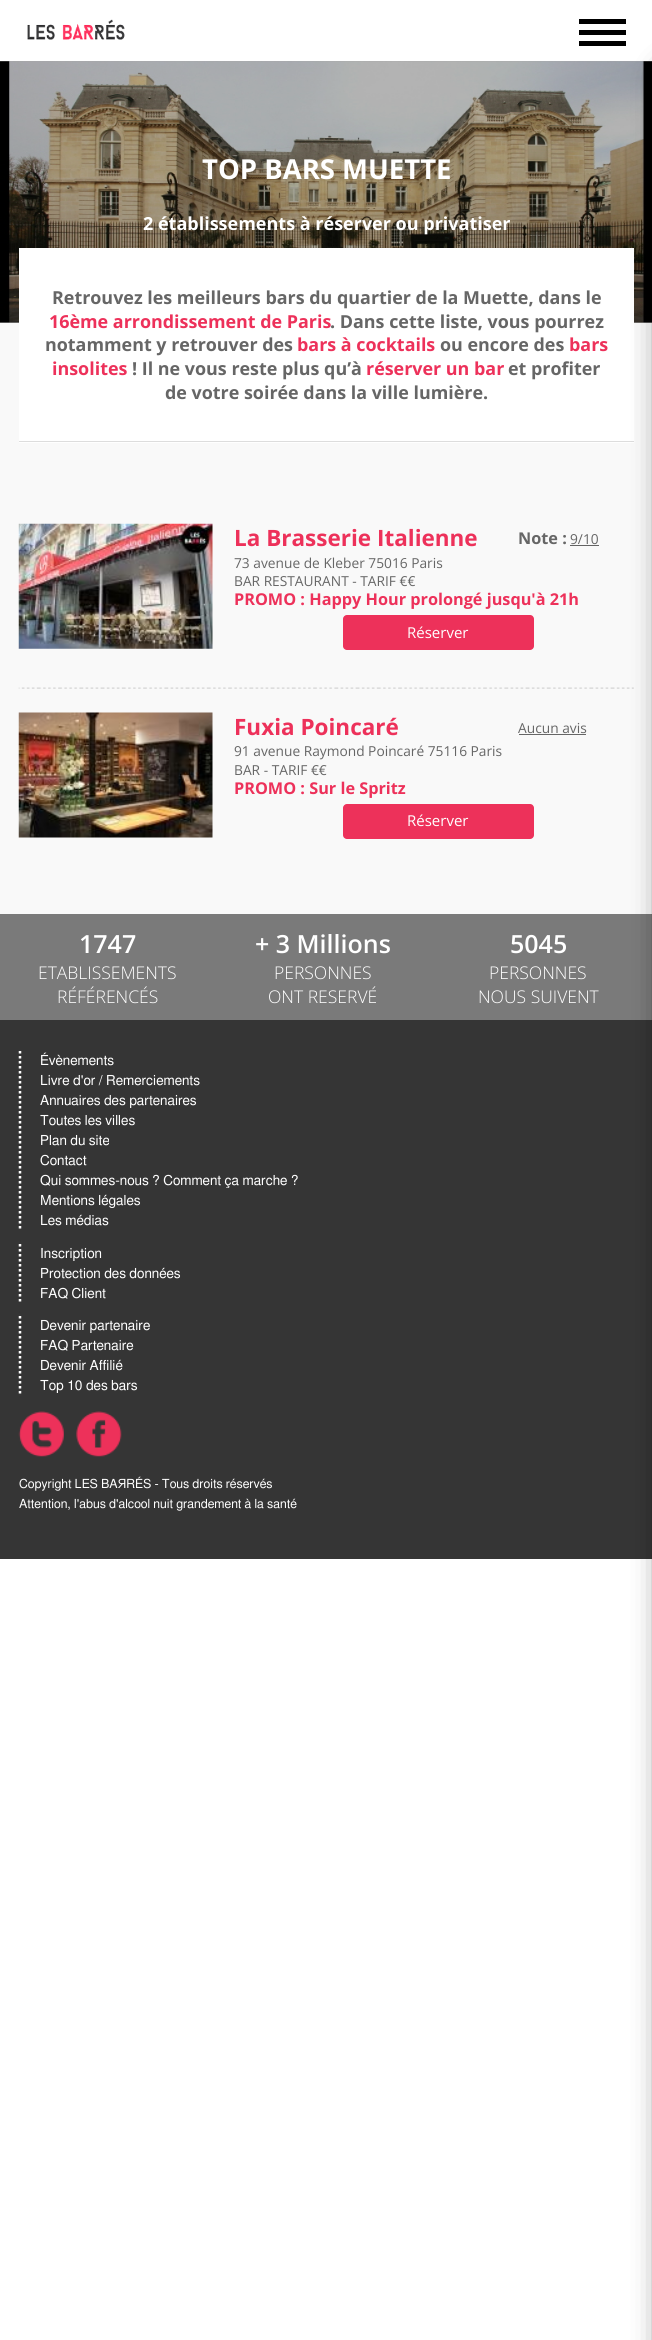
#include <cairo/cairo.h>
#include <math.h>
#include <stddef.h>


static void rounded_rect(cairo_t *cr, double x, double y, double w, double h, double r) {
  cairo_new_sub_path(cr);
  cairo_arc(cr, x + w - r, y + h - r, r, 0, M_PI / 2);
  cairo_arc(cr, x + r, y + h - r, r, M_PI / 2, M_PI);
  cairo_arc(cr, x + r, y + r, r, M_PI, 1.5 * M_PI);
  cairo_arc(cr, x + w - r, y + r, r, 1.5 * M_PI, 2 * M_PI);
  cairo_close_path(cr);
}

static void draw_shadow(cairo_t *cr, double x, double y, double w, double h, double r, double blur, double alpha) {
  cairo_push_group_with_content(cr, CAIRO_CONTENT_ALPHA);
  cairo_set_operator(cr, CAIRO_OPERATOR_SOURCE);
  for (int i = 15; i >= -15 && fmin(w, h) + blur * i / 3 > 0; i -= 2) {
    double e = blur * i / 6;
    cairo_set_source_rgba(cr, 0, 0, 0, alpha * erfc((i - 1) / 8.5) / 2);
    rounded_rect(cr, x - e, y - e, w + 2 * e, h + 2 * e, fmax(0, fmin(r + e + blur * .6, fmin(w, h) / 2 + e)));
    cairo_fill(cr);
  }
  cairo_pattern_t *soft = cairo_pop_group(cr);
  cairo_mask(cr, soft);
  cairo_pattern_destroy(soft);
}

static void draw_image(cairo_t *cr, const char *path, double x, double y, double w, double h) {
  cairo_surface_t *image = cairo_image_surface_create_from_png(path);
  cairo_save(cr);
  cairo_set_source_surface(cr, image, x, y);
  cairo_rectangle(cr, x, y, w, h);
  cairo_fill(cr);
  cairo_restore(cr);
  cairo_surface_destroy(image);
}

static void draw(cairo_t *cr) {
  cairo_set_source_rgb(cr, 1, 1, 1);
  cairo_paint(cr);
  draw_image(cr, "images/1.png", 27, 19, 98, 21);
  cairo_set_source_rgb(cr, 0, 0, 0);
  cairo_rectangle(cr, 579, 19, 47, 5);
  cairo_fill(cr);
  cairo_rectangle(cr, 579, 30, 47, 5);
  cairo_fill(cr);
  cairo_rectangle(cr, 579, 41, 47, 5);
  cairo_fill(cr);
  cairo_set_source_rgb(cr, 239 / 255.0, 239 / 255.0, 239 / 255.0);
  cairo_rectangle(cr, 0, 61, 652, 262);
  cairo_fill(cr);
  draw_image(cr, "images/2.png", 0, 61, 652, 262);
  cairo_set_source_rgba(cr, 0, 0, 0, 0.3);
  cairo_rectangle(cr, 0, 61, 652, 125);
  cairo_fill(cr);
  cairo_rectangle(cr, 0, 186, 652, 137);
  cairo_fill(cr);
  cairo_set_source_rgb(cr, 249 / 255.0, 249 / 255.0, 249 / 255.0);
  cairo_rectangle(cr, 0, 323, 652, 591);
  cairo_fill(cr);
  cairo_set_source_rgb(cr, 1, 1, 1);
  cairo_rectangle(cr, 19, 248, 615, 195);
  cairo_fill(cr);
  cairo_set_source_rgb(cr, 221 / 255.0, 221 / 255.0, 221 / 255.0);
  cairo_rectangle(cr, 19, 441, 615, 1);
  cairo_fill(cr);
  draw_image(cr, "images/4.png", 18, 687, 616, 2);
  cairo_set_source_rgb(cr, 122 / 255.0, 122 / 255.0, 122 / 255.0);
  cairo_rectangle(cr, 0, 914, 652, 106);
  cairo_fill(cr);
  cairo_set_source_rgb(cr, 53 / 255.0, 53 / 255.0, 53 / 255.0);
  cairo_rectangle(cr, 0, 1020, 652, 539);
  cairo_fill(cr);
  cairo_set_source_rgb(cr, 0, 0, 0);
  draw_shadow(cr, 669, 74, 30, 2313, 0, 15.5, 1);
  draw_image(cr, "images/3.png", 18, 523, 195, 126);
  cairo_set_source_rgb(cr, 99 / 255.0, 99 / 255.0, 99 / 255.0);
  cairo_rectangle(cr, 570, 545, 29, 1);
  cairo_fill(cr);
  cairo_set_source_rgb(cr, 237 / 255.0, 49 / 255.0, 90 / 255.0);
  rounded_rect(cr, 343, 615, 191, 35, 4);
  cairo_fill(cr);
  draw_image(cr, "images/5.png", 18, 712, 195, 126);
  cairo_set_source_rgb(cr, 102 / 255.0, 102 / 255.0, 102 / 255.0);
  cairo_rectangle(cr, 519, 734, 67, 1);
  cairo_fill(cr);
  cairo_set_source_rgb(cr, 237 / 255.0, 49 / 255.0, 90 / 255.0);
  rounded_rect(cr, 343, 804, 191, 35, 4);
  cairo_fill(cr);
  cairo_new_path(cr);
  cairo_move_to(cr, 20, 1051);
  cairo_line_to(cr, 20, 1231);
  cairo_set_source_rgb(cr, 1, 1, 1);
  cairo_set_line_width(cr, 2.5);
  cairo_set_dash(cr, (double[]){2.5, 2.5}, 2, 0);
  cairo_stroke(cr);
  cairo_new_path(cr);
  cairo_move_to(cr, 20, 1244);
  cairo_line_to(cr, 20, 1304);
  cairo_stroke(cr);
  cairo_new_path(cr);
  cairo_move_to(cr, 20, 1316);
  cairo_line_to(cr, 20, 1396);
  cairo_stroke(cr);
  draw_image(cr, "images/6.png", 18, 1411, 46, 46);
  draw_image(cr, "images/7.png", 76, 1411, 46, 46);
  cairo_select_font_face(cr, "Open Sans", CAIRO_FONT_SLANT_NORMAL, CAIRO_FONT_WEIGHT_BOLD);
  cairo_set_font_size(cr, 27.5);
  cairo_move_to(cr, 202, 179);
  cairo_show_text(cr, "TOP BARS MUETTE");
  cairo_set_font_size(cr, 18);
  cairo_move_to(cr, 143, 230);
  cairo_show_text(cr, "2 établissements à réserver ou privatiser");
  cairo_set_font_size(cr, 17.9);
  cairo_set_source_rgb(cr, 102 / 255.0, 102 / 255.0, 102 / 255.0);
  cairo_move_to(cr, 52, 304);
  cairo_show_text(cr, "Retrouvez les meilleurs bars du quartier de la Muette, dans le");
  cairo_set_source_rgb(cr, 237 / 255.0, 49 / 255.0, 90 / 255.0);
  cairo_move_to(cr, 49, 328);
  cairo_show_text(cr, "16ème arrondissement de Paris");
  cairo_set_source_rgb(cr, 102 / 255.0, 102 / 255.0, 102 / 255.0);
  cairo_move_to(cr, 330, 328);
  cairo_show_text(cr, ". Dans cette liste, vous pourrez");
  cairo_move_to(cr, 45, 351);
  cairo_show_text(cr, "notamment y retrouver des");
  cairo_set_source_rgb(cr, 237 / 255.0, 49 / 255.0, 90 / 255.0);
  cairo_move_to(cr, 297, 351);
  cairo_show_text(cr, "bars à cocktails");
  cairo_set_source_rgb(cr, 102 / 255.0, 102 / 255.0, 102 / 255.0);
  cairo_move_to(cr, 440, 351);
  cairo_show_text(cr, "ou encore des");
  cairo_set_source_rgb(cr, 237 / 255.0, 49 / 255.0, 90 / 255.0);
  cairo_move_to(cr, 569, 351);
  cairo_show_text(cr, "bars");
  cairo_move_to(cr, 52, 375);
  cairo_show_text(cr, "insolites");
  cairo_set_source_rgb(cr, 102 / 255.0, 102 / 255.0, 102 / 255.0);
  cairo_move_to(cr, 132, 375);
  cairo_show_text(cr, "! Il ne vous reste plus qu’à");
  cairo_set_source_rgb(cr, 237 / 255.0, 49 / 255.0, 90 / 255.0);
  cairo_move_to(cr, 366, 375);
  cairo_show_text(cr, "réserver un bar");
  cairo_set_source_rgb(cr, 102 / 255.0, 102 / 255.0, 102 / 255.0);
  cairo_move_to(cr, 508, 375);
  cairo_show_text(cr, "et profiter");
  cairo_move_to(cr, 165, 399);
  cairo_show_text(cr, "de votre soirée dans la ville lumière.");
  cairo_set_font_size(cr, 22.5);
  cairo_set_source_rgb(cr, 237 / 255.0, 49 / 255.0, 90 / 255.0);
  cairo_move_to(cr, 234, 546);
  cairo_show_text(cr, "La Brasserie Italienne");
  cairo_set_font_size(cr, 16.25);
  cairo_set_source_rgb(cr, 102 / 255.0, 102 / 255.0, 102 / 255.0);
  cairo_move_to(cr, 518, 544);
  cairo_show_text(cr, "Note :");
  cairo_select_font_face(cr, "Open Sans", CAIRO_FONT_SLANT_NORMAL, CAIRO_FONT_WEIGHT_NORMAL);
  cairo_set_font_size(cr, 13.75);
  cairo_move_to(cr, 570, 544);
  cairo_show_text(cr, "9/10");
  cairo_move_to(cr, 234, 568);
  cairo_show_text(cr, "73 avenue de Kleber 75016 Paris");
  cairo_move_to(cr, 234, 586);
  cairo_show_text(cr, "BAR RESTAURANT - TARIF €€");
  cairo_select_font_face(cr, "Open Sans", CAIRO_FONT_SLANT_NORMAL, CAIRO_FONT_WEIGHT_BOLD);
  cairo_set_font_size(cr, 16.25);
  cairo_set_source_rgb(cr, 237 / 255.0, 49 / 255.0, 90 / 255.0);
  cairo_move_to(cr, 234, 605);
  cairo_show_text(cr, "PROMO : Happy Hour prolongé jusqu'à 21h");
  cairo_select_font_face(cr, "Open Sans", CAIRO_FONT_SLANT_NORMAL, CAIRO_FONT_WEIGHT_NORMAL);
  cairo_set_font_size(cr, 15);
  cairo_set_source_rgb(cr, 1, 1, 1);
  cairo_move_to(cr, 407, 638);
  cairo_show_text(cr, "Réserver");
  cairo_select_font_face(cr, "Open Sans", CAIRO_FONT_SLANT_NORMAL, CAIRO_FONT_WEIGHT_BOLD);
  cairo_set_font_size(cr, 22.5);
  cairo_set_source_rgb(cr, 237 / 255.0, 49 / 255.0, 90 / 255.0);
  cairo_move_to(cr, 234, 735);
  cairo_show_text(cr, "Fuxia Poincaré");
  cairo_select_font_face(cr, "Open Sans", CAIRO_FONT_SLANT_NORMAL, CAIRO_FONT_WEIGHT_NORMAL);
  cairo_set_font_size(cr, 13.75);
  cairo_set_source_rgb(cr, 102 / 255.0, 102 / 255.0, 102 / 255.0);
  cairo_move_to(cr, 518, 733);
  cairo_show_text(cr, "Aucun avis");
  cairo_move_to(cr, 234, 756);
  cairo_show_text(cr, "91 avenue Raymond Poincaré 75116 Paris");
  cairo_move_to(cr, 234, 775);
  cairo_show_text(cr, "BAR - TARIF €€");
  cairo_select_font_face(cr, "Open Sans", CAIRO_FONT_SLANT_NORMAL, CAIRO_FONT_WEIGHT_BOLD);
  cairo_set_font_size(cr, 16.25);
  cairo_set_source_rgb(cr, 237 / 255.0, 49 / 255.0, 90 / 255.0);
  cairo_move_to(cr, 234, 794);
  cairo_show_text(cr, "PROMO : Sur le Spritz");
  cairo_select_font_face(cr, "Open Sans", CAIRO_FONT_SLANT_NORMAL, CAIRO_FONT_WEIGHT_NORMAL);
  cairo_set_font_size(cr, 15);
  cairo_set_source_rgb(cr, 1, 1, 1);
  cairo_move_to(cr, 407, 826);
  cairo_show_text(cr, "Réserver");
  cairo_select_font_face(cr, "Open Sans SemiBold", CAIRO_FONT_SLANT_NORMAL, CAIRO_FONT_WEIGHT_NORMAL);
  cairo_set_font_size(cr, 25);
  cairo_move_to(cr, 79, 953);
  cairo_show_text(cr, "1747");
  cairo_select_font_face(cr, "Open Sans Light", CAIRO_FONT_SLANT_NORMAL, CAIRO_FONT_WEIGHT_NORMAL);
  cairo_set_font_size(cr, 17.5);
  cairo_move_to(cr, 38, 979);
  cairo_show_text(cr, "ETABLISSEMENTS");
  cairo_move_to(cr, 57, 1003);
  cairo_show_text(cr, "RÉFÉRENCÉS");
  cairo_select_font_face(cr, "Open Sans SemiBold", CAIRO_FONT_SLANT_NORMAL, CAIRO_FONT_WEIGHT_NORMAL);
  cairo_set_font_size(cr, 25);
  cairo_move_to(cr, 255, 953);
  cairo_show_text(cr, "+ 3 Millions");
  cairo_select_font_face(cr, "Open Sans Light", CAIRO_FONT_SLANT_NORMAL, CAIRO_FONT_WEIGHT_NORMAL);
  cairo_set_font_size(cr, 17.5);
  cairo_move_to(cr, 274, 979);
  cairo_show_text(cr, "PERSONNES");
  cairo_move_to(cr, 268, 1003);
  cairo_show_text(cr, "ONT RESERVÉ");
  cairo_select_font_face(cr, "Open Sans SemiBold", CAIRO_FONT_SLANT_NORMAL, CAIRO_FONT_WEIGHT_NORMAL);
  cairo_set_font_size(cr, 25);
  cairo_move_to(cr, 510, 953);
  cairo_show_text(cr, "5045");
  cairo_select_font_face(cr, "Open Sans Light", CAIRO_FONT_SLANT_NORMAL, CAIRO_FONT_WEIGHT_NORMAL);
  cairo_set_font_size(cr, 17.5);
  cairo_move_to(cr, 489, 979);
  cairo_show_text(cr, "PERSONNES");
  cairo_move_to(cr, 478, 1003);
  cairo_show_text(cr, "NOUS SUIVENT");
  cairo_select_font_face(cr, "FreeSans", CAIRO_FONT_SLANT_NORMAL, CAIRO_FONT_WEIGHT_NORMAL);
  cairo_set_font_size(cr, 13.75);
  cairo_move_to(cr, 40, 1065);
  cairo_show_text(cr, "Évènements");
  cairo_move_to(cr, 40, 1085);
  cairo_show_text(cr, "Livre d'or / Remerciements");
  cairo_move_to(cr, 40, 1105);
  cairo_show_text(cr, "Annuaires des partenaires");
  cairo_move_to(cr, 40, 1125);
  cairo_show_text(cr, "Toutes les villes");
  cairo_move_to(cr, 40, 1145);
  cairo_show_text(cr, "Plan du site");
  cairo_move_to(cr, 40, 1165);
  cairo_show_text(cr, "Contact");
  cairo_move_to(cr, 40, 1185);
  cairo_show_text(cr, "Qui sommes-nous ? Comment ça marche ?");
  cairo_move_to(cr, 40, 1205);
  cairo_show_text(cr, "Mentions légales");
  cairo_move_to(cr, 40, 1225);
  cairo_show_text(cr, "Les médias");
  cairo_move_to(cr, 40, 1258);
  cairo_show_text(cr, "Inscription");
  cairo_move_to(cr, 40, 1278);
  cairo_show_text(cr, "Protection des données");
  cairo_move_to(cr, 40, 1298);
  cairo_show_text(cr, "FAQ Client");
  cairo_move_to(cr, 40, 1330);
  cairo_show_text(cr, "Devenir partenaire");
  cairo_move_to(cr, 40, 1350);
  cairo_show_text(cr, "FAQ Partenaire");
  cairo_move_to(cr, 40, 1370);
  cairo_show_text(cr, "Devenir Affilié");
  cairo_move_to(cr, 40, 1390);
  cairo_show_text(cr, "Top 10 des bars");
  cairo_set_font_size(cr, 12.5);
  cairo_move_to(cr, 19, 1488);
  cairo_show_text(cr, "Copyright LES BAЯRÉS - Tous droits réservés");
  cairo_move_to(cr, 19, 1508);
  cairo_show_text(cr, "Attention, l'abus d'alcool nuit grandement à la santé");
}

int main(void) {
  cairo_surface_t *surface = cairo_image_surface_create(CAIRO_FORMAT_RGB24, 652, 2340);
  cairo_t *cr = cairo_create(surface);
  cairo_font_options_t *options = cairo_font_options_create();
  cairo_font_options_set_hint_metrics(options, CAIRO_HINT_METRICS_OFF);
  cairo_font_options_set_hint_style(options, CAIRO_HINT_STYLE_NONE);
  cairo_set_font_options(cr, options);
  cairo_set_miter_limit(cr, 4);
  draw(cr);
  cairo_surface_write_to_png(surface, "out.png");
  cairo_font_options_destroy(options);
  cairo_destroy(cr);
  cairo_surface_destroy(surface);
  return 0;
}
